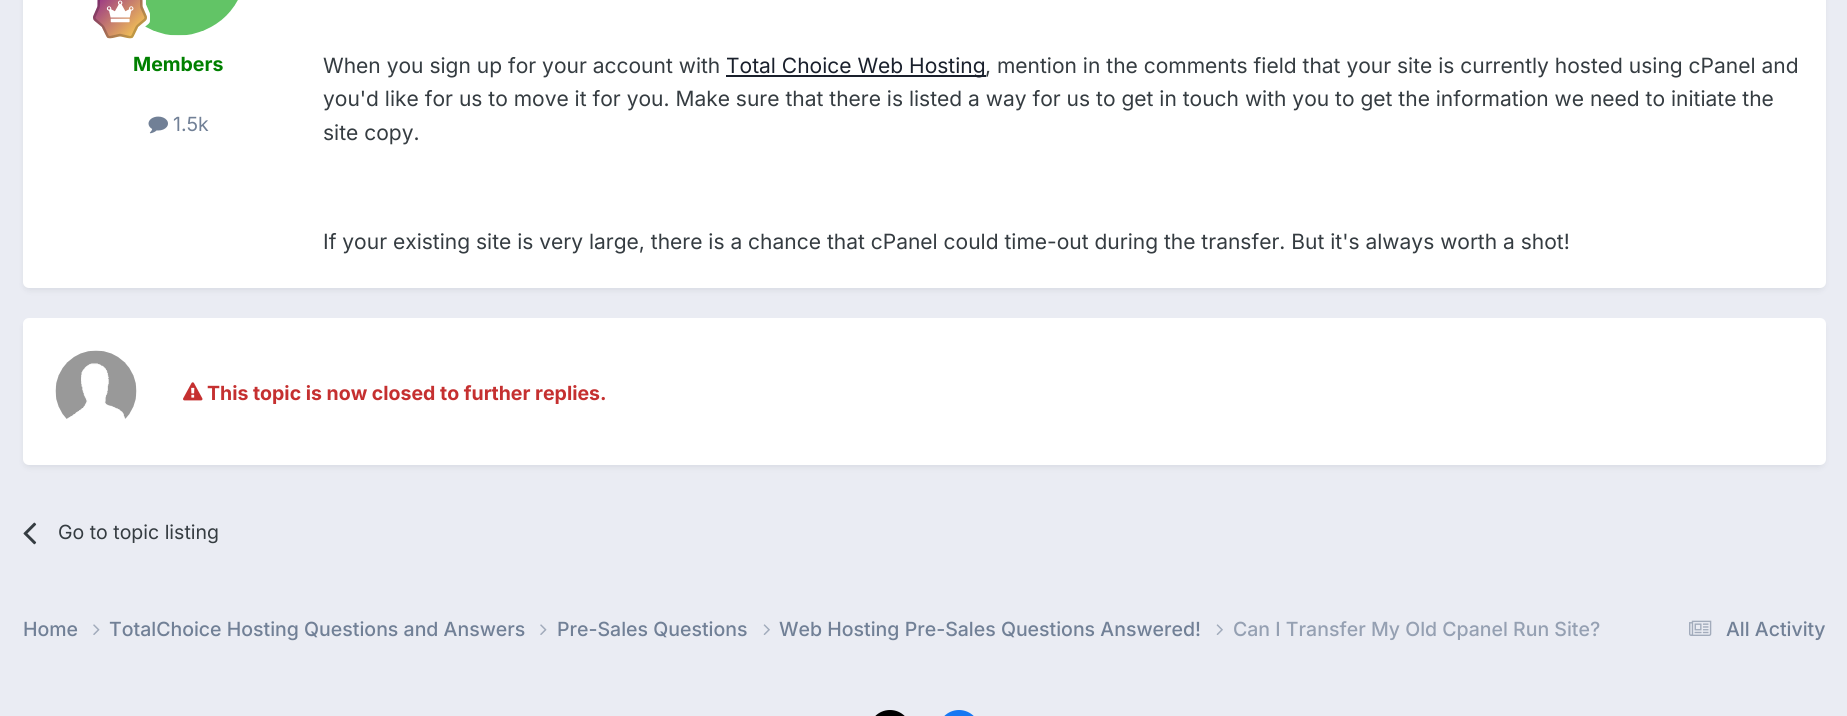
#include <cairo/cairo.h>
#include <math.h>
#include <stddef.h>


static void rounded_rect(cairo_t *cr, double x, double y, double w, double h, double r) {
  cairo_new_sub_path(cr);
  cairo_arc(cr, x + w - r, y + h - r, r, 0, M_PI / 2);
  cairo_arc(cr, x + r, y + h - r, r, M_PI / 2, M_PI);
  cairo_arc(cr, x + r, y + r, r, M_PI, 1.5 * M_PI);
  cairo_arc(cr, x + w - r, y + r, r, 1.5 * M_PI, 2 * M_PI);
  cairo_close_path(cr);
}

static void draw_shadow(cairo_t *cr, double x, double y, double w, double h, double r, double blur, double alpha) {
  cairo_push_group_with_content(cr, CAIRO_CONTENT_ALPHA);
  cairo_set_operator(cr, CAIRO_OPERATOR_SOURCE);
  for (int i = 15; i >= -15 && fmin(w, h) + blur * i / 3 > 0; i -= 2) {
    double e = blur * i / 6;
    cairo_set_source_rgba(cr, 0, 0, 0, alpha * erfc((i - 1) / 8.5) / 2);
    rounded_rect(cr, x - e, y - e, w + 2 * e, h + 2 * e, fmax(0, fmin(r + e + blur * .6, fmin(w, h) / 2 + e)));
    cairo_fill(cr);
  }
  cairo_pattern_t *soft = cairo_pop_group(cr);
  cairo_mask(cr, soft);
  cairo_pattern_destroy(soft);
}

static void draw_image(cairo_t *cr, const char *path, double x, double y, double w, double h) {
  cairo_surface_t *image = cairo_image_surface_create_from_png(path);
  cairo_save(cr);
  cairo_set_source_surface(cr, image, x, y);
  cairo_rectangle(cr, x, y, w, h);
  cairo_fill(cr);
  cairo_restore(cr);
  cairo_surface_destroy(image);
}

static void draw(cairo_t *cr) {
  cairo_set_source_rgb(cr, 234 / 255.0, 236 / 255.0, 243 / 255.0);
  cairo_paint(cr);
  cairo_set_source_rgb(cr, 45 / 255.0, 55 / 255.0, 72 / 255.0);
  draw_shadow(cr, 24, -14, 1800, 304, 5, 3, 0.1);
  cairo_set_source_rgb(cr, 1, 1, 1);
  rounded_rect(cr, 23, -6, 1803, 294, 6);
  cairo_fill(cr);
  draw_image(cr, "images/2.png", 144, 0, 94, 36);
  draw_image(cr, "images/1.png", 93, 0, 57, 39);
  draw_image(cr, "images/3.png", 148, 116, 20, 18);
  cairo_set_source_rgb(cr, 26 / 255.0, 32 / 255.0, 44 / 255.0);
  cairo_rectangle(cr, 726, 75, 260, 2);
  cairo_fill(cr);
  cairo_set_source_rgb(cr, 45 / 255.0, 55 / 255.0, 72 / 255.0);
  draw_shadow(cr, 24, 323, 1800, 144, 5, 3, 0.1);
  cairo_set_source_rgb(cr, 1, 1, 1);
  rounded_rect(cr, 23, 318, 1803, 147, 6);
  cairo_fill(cr);
  draw_image(cr, "images/4.png", 55, 350, 82, 69);
  draw_image(cr, "images/5.png", 183, 382, 20, 19);
  draw_image(cr, "images/6.png", 23, 522, 14, 23);
  draw_image(cr, "images/7.png", 93, 624, 7, 11);
  draw_image(cr, "images/7.png", 540, 624, 7, 11);
  draw_image(cr, "images/8.png", 763, 624, 7, 11);
  draw_image(cr, "images/8.png", 1216, 624, 7, 11);
  draw_image(cr, "images/9.png", 1689, 620, 23, 16);
  cairo_set_source_rgb(cr, 0, 0, 0);
  rounded_rect(cr, 869, 710, 42, 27, 21);
  cairo_fill(cr);
  cairo_set_source_rgb(cr, 23 / 255.0, 120 / 255.0, 242 / 255.0);
  rounded_rect(cr, 938, 710, 42, 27, 21);
  cairo_fill(cr);
  cairo_select_font_face(cr, "Inter", CAIRO_FONT_SLANT_NORMAL, CAIRO_FONT_WEIGHT_BOLD);
  cairo_set_font_size(cr, 19.5);
  cairo_set_source_rgb(cr, 0, 128 / 255.0, 0);
  cairo_move_to(cr, 133, 71);
  cairo_show_text(cr, "Members");
  cairo_select_font_face(cr, "Inter", CAIRO_FONT_SLANT_NORMAL, CAIRO_FONT_WEIGHT_NORMAL);
  cairo_set_source_rgb(cr, 113 / 255.0, 128 / 255.0, 150 / 255.0);
  cairo_move_to(cr, 173, 131);
  cairo_show_text(cr, "1.5k");
  cairo_set_font_size(cr, 21);
  cairo_set_source_rgb(cr, 53 / 255.0, 60 / 255.0, 65 / 255.0);
  cairo_move_to(cr, 323, 73);
  cairo_show_text(cr, "When you sign up for your account with");
  cairo_set_source_rgb(cr, 26 / 255.0, 32 / 255.0, 44 / 255.0);
  cairo_move_to(cr, 726, 73);
  cairo_show_text(cr, "Total Choice Web Hosting");
  cairo_set_source_rgb(cr, 53 / 255.0, 60 / 255.0, 65 / 255.0);
  cairo_move_to(cr, 985, 73);
  cairo_show_text(cr, ", mention in the comments field that your site is currently hosted using cPanel and");
  cairo_move_to(cr, 323, 106);
  cairo_show_text(cr, "you'd like for us to move it for you. Make sure that there is listed a way for us to get in touch with you to get the information we need to initiate the");
  cairo_move_to(cr, 323, 140);
  cairo_show_text(cr, "site copy.");
  cairo_move_to(cr, 323, 249);
  cairo_show_text(cr, "If your existing site is very large, there is a chance that cPanel could time-out during the transfer. But it's always worth a shot!");
  cairo_select_font_face(cr, "Inter", CAIRO_FONT_SLANT_NORMAL, CAIRO_FONT_WEIGHT_BOLD);
  cairo_set_font_size(cr, 19.5);
  cairo_set_source_rgb(cr, 197 / 255.0, 48 / 255.0, 48 / 255.0);
  cairo_move_to(cr, 207, 400);
  cairo_show_text(cr, "This topic is now closed to further replies.");
  cairo_select_font_face(cr, "Inter", CAIRO_FONT_SLANT_NORMAL, CAIRO_FONT_WEIGHT_NORMAL);
  cairo_set_source_rgb(cr, 53 / 255.0, 60 / 255.0, 65 / 255.0);
  cairo_move_to(cr, 58, 539);
  cairo_show_text(cr, "Go to topic listing");
  cairo_select_font_face(cr, "Inter Medium", CAIRO_FONT_SLANT_NORMAL, CAIRO_FONT_WEIGHT_NORMAL);
  cairo_set_source_rgb(cr, 113 / 255.0, 128 / 255.0, 150 / 255.0);
  cairo_move_to(cr, 23, 636);
  cairo_show_text(cr, "Home");
  cairo_move_to(cr, 109, 636);
  cairo_show_text(cr, "TotalChoice Hosting Questions and Answers");
  cairo_move_to(cr, 557, 636);
  cairo_show_text(cr, "Pre-Sales Questions");
  cairo_move_to(cr, 779, 636);
  cairo_show_text(cr, "Web Hosting Pre-Sales Questions Answered!");
  cairo_set_source_rgb(cr, 149 / 255.0, 160 / 255.0, 178 / 255.0);
  cairo_move_to(cr, 1233, 636);
  cairo_show_text(cr, "Can I Transfer My Old Cpanel Run Site?");
  cairo_set_source_rgb(cr, 113 / 255.0, 128 / 255.0, 150 / 255.0);
  cairo_move_to(cr, 1726, 636);
  cairo_show_text(cr, "All Activity");
}

int main(void) {
  cairo_surface_t *surface = cairo_image_surface_create(CAIRO_FORMAT_RGB24, 1847, 716);
  cairo_t *cr = cairo_create(surface);
  cairo_font_options_t *options = cairo_font_options_create();
  cairo_font_options_set_hint_metrics(options, CAIRO_HINT_METRICS_OFF);
  cairo_font_options_set_hint_style(options, CAIRO_HINT_STYLE_NONE);
  cairo_set_font_options(cr, options);
  cairo_set_miter_limit(cr, 4);
  draw(cr);
  cairo_surface_write_to_png(surface, "out.png");
  cairo_font_options_destroy(options);
  cairo_destroy(cr);
  cairo_surface_destroy(surface);
  return 0;
}
